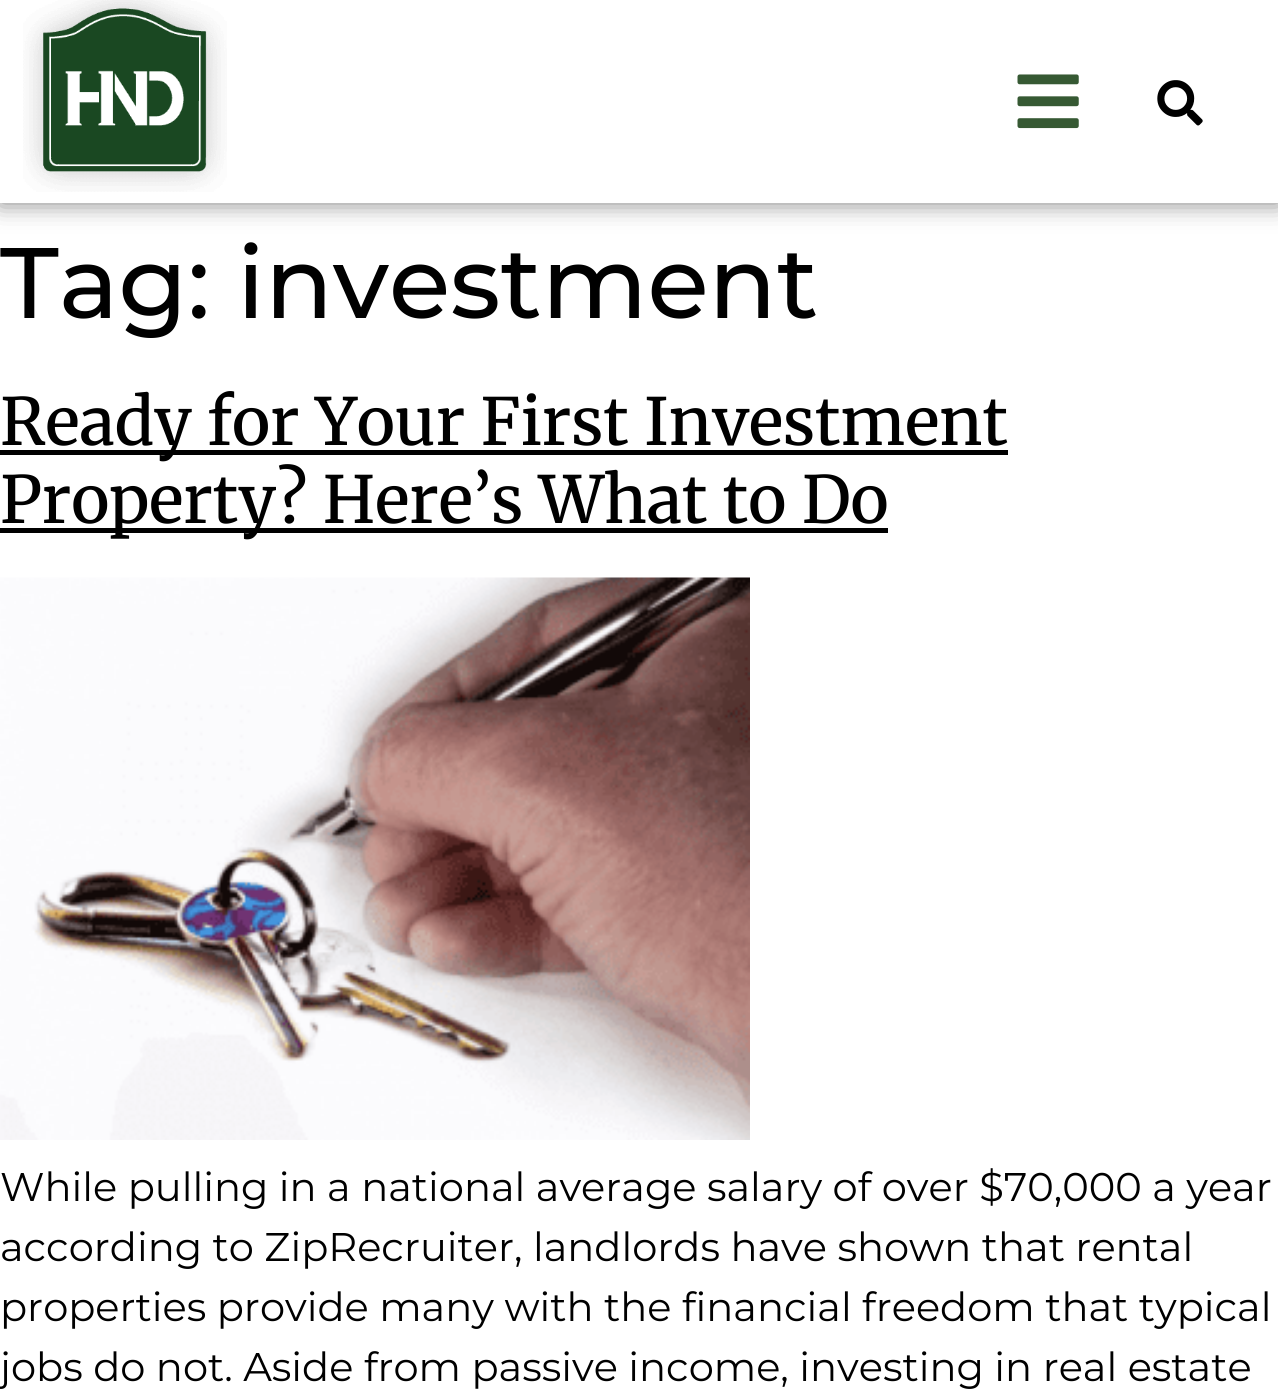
#include <cairo/cairo.h>
#include <math.h>
#include <stddef.h>


static void rounded_rect(cairo_t *cr, double x, double y, double w, double h, double r) {
  cairo_new_sub_path(cr);
  cairo_arc(cr, x + w - r, y + h - r, r, 0, M_PI / 2);
  cairo_arc(cr, x + r, y + h - r, r, M_PI / 2, M_PI);
  cairo_arc(cr, x + r, y + r, r, M_PI, 1.5 * M_PI);
  cairo_arc(cr, x + w - r, y + r, r, 1.5 * M_PI, 2 * M_PI);
  cairo_close_path(cr);
}

static void draw_shadow(cairo_t *cr, double x, double y, double w, double h, double r, double blur, double alpha) {
  cairo_push_group_with_content(cr, CAIRO_CONTENT_ALPHA);
  cairo_set_operator(cr, CAIRO_OPERATOR_SOURCE);
  for (int i = 15; i >= -15 && fmin(w, h) + blur * i / 3 > 0; i -= 2) {
    double e = blur * i / 6;
    cairo_set_source_rgba(cr, 0, 0, 0, alpha * erfc((i - 1) / 8.5) / 2);
    rounded_rect(cr, x - e, y - e, w + 2 * e, h + 2 * e, fmax(0, fmin(r + e + blur * .6, fmin(w, h) / 2 + e)));
    cairo_fill(cr);
  }
  cairo_pattern_t *soft = cairo_pop_group(cr);
  cairo_mask(cr, soft);
  cairo_pattern_destroy(soft);
}

static void draw_image(cairo_t *cr, const char *path, double x, double y, double w, double h) {
  cairo_surface_t *image = cairo_image_surface_create_from_png(path);
  cairo_save(cr);
  cairo_set_source_surface(cr, image, x, y);
  cairo_rectangle(cr, x, y, w, h);
  cairo_fill(cr);
  cairo_restore(cr);
  cairo_surface_destroy(image);
}

static void draw(cairo_t *cr) {
  cairo_set_source_rgb(cr, 1, 1, 1);
  cairo_paint(cr);
  cairo_save(cr);
  cairo_set_fill_rule(cr, CAIRO_FILL_RULE_EVEN_ODD);
  cairo_new_path(cr);
  cairo_move_to(cr, 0, 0);
  cairo_line_to(cr, 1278, 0);
  cairo_line_to(cr, 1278, 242);
  cairo_line_to(cr, 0, 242);
  cairo_close_path(cr);
  cairo_move_to(cr, 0, 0);
  cairo_line_to(cr, 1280, 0);
  cairo_line_to(cr, 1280, 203);
  cairo_line_to(cr, 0, 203);
  cairo_close_path(cr);
  cairo_clip(cr);
  cairo_set_source_rgb(cr, 0, 0, 0);
  draw_shadow(cr, 0, 0, 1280, 203, 0, 12.5, 0.5);
  cairo_restore(cr);
  draw_image(cr, "images/1.png", 23, 0, 204, 192);
  draw_image(cr, "images/2.png", 1017, 74, 62, 55);
  draw_image(cr, "images/3.png", 1157, 80, 46, 46);
  cairo_set_source_rgb(cr, 0, 0, 0);
  cairo_rectangle(cr, 0, 450, 1008, 5);
  cairo_fill(cr);
  cairo_rectangle(cr, 0, 528, 888, 5);
  cairo_fill(cr);
  draw_image(cr, "images/4.png", 0, 577, 750, 563);
  cairo_select_font_face(cr, "Montserrat Medium", CAIRO_FONT_SLANT_NORMAL, CAIRO_FONT_WEIGHT_NORMAL);
  cairo_set_font_size(cr, 100);
  cairo_move_to(cr, 0, 318);
  cairo_show_text(cr, "Tag: investment");
  cairo_select_font_face(cr, "Merriweather Medium", CAIRO_FONT_SLANT_NORMAL, CAIRO_FONT_WEIGHT_NORMAL);
  cairo_set_font_size(cr, 65);
  cairo_move_to(cr, 0, 445);
  cairo_show_text(cr, "Ready for Your First Investment");
  cairo_move_to(cr, 0, 523);
  cairo_show_text(cr, "Property? Here’s What to Do");
  cairo_select_font_face(cr, "Montserrat", CAIRO_FONT_SLANT_NORMAL, CAIRO_FONT_WEIGHT_NORMAL);
  cairo_set_font_size(cr, 40);
  cairo_move_to(cr, 0, 1201);
  cairo_show_text(cr, "While pulling in a national average salary of over $70,000 a year");
  cairo_move_to(cr, 0, 1261);
  cairo_show_text(cr, "according to ZipRecruiter, landlords have shown that rental");
  cairo_move_to(cr, 0, 1321);
  cairo_show_text(cr, "properties provide many with the financial freedom that typical");
  cairo_move_to(cr, 0, 1381);
  cairo_show_text(cr, "jobs do not. Aside from passive income, investing in real estate");
}

int main(void) {
  cairo_surface_t *surface = cairo_image_surface_create(CAIRO_FORMAT_RGB24, 1278, 1391);
  cairo_t *cr = cairo_create(surface);
  cairo_font_options_t *options = cairo_font_options_create();
  cairo_font_options_set_hint_metrics(options, CAIRO_HINT_METRICS_OFF);
  cairo_font_options_set_hint_style(options, CAIRO_HINT_STYLE_NONE);
  cairo_set_font_options(cr, options);
  cairo_set_miter_limit(cr, 4);
  draw(cr);
  cairo_surface_write_to_png(surface, "out.png");
  cairo_font_options_destroy(options);
  cairo_destroy(cr);
  cairo_surface_destroy(surface);
  return 0;
}
